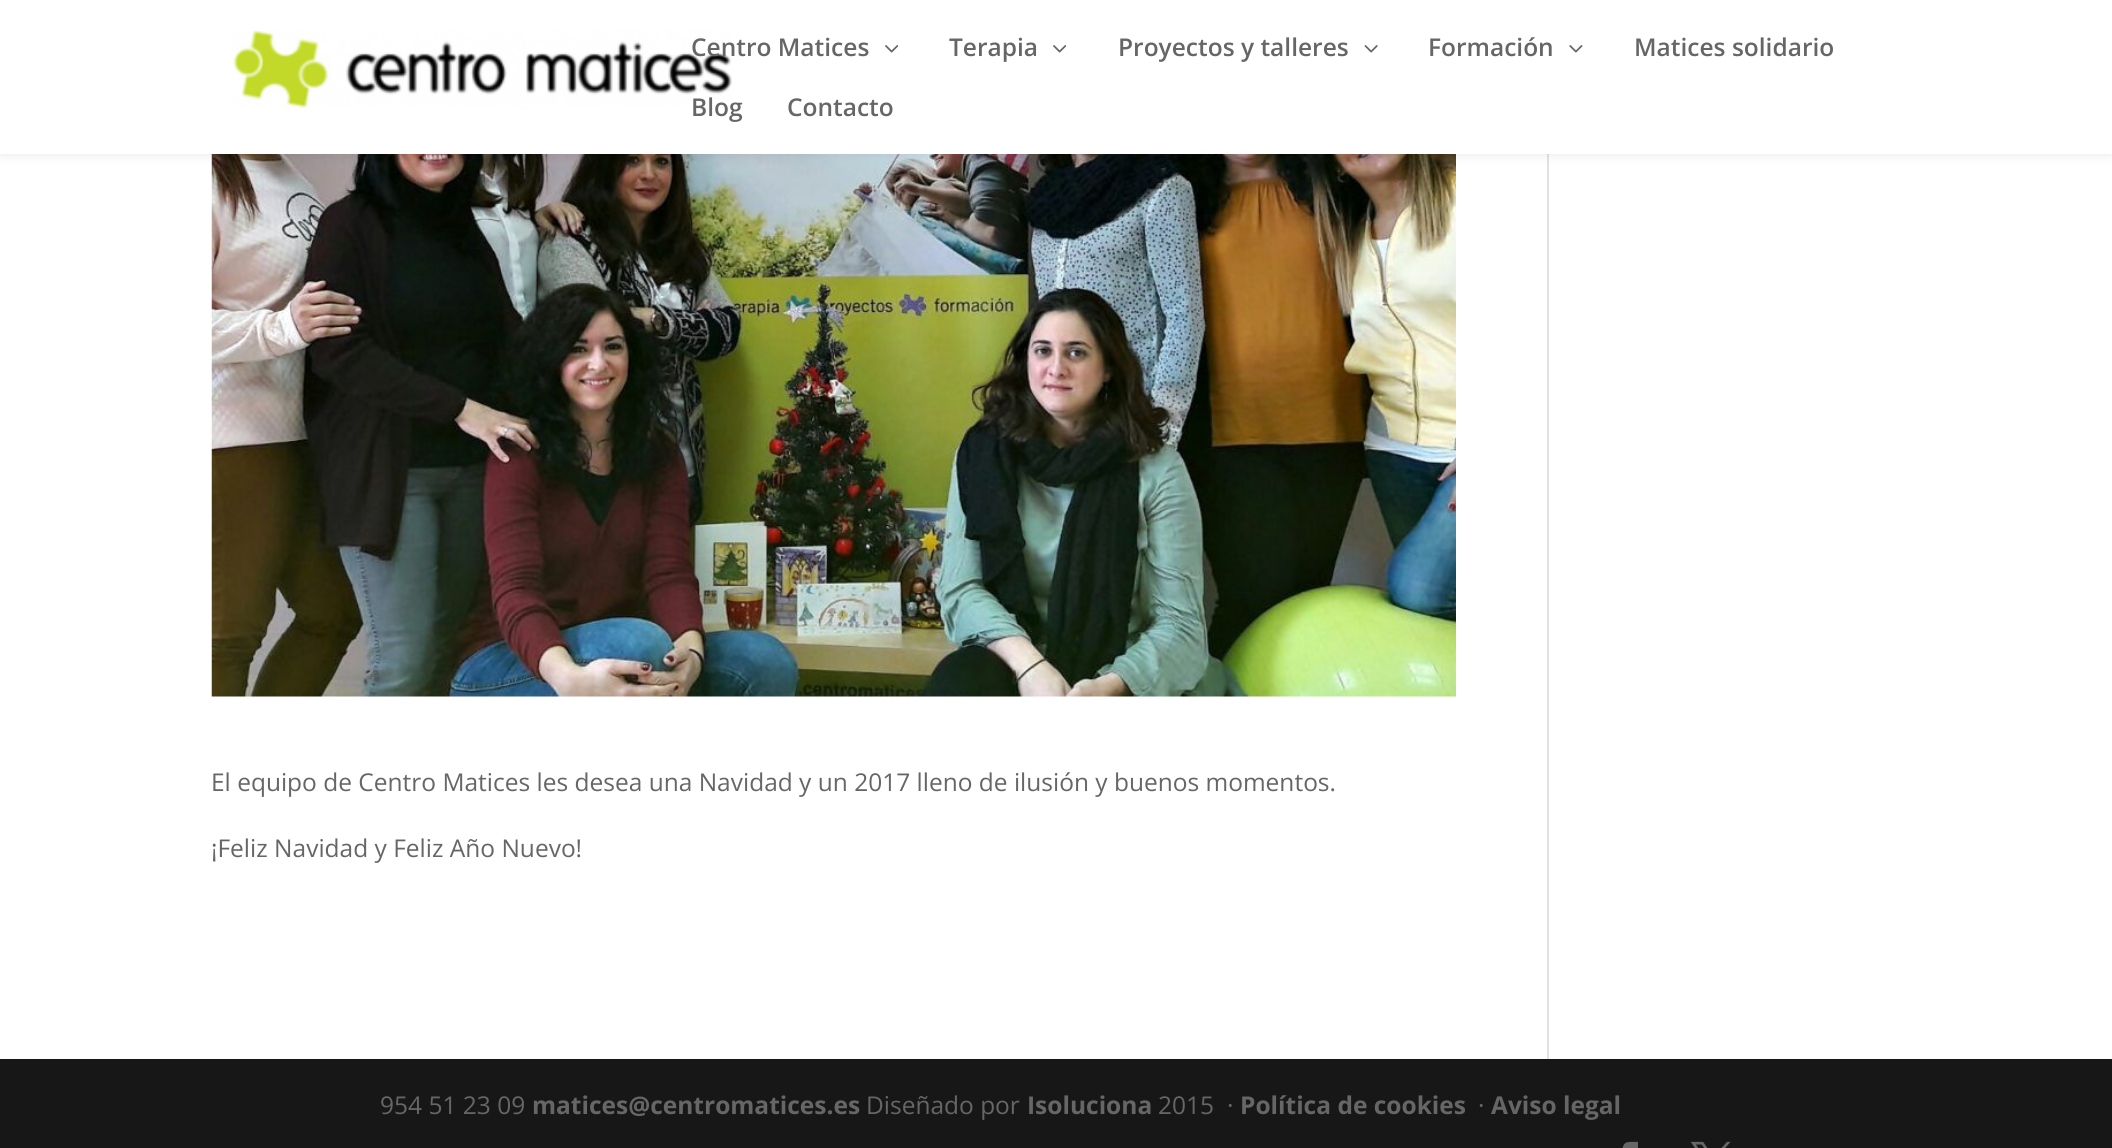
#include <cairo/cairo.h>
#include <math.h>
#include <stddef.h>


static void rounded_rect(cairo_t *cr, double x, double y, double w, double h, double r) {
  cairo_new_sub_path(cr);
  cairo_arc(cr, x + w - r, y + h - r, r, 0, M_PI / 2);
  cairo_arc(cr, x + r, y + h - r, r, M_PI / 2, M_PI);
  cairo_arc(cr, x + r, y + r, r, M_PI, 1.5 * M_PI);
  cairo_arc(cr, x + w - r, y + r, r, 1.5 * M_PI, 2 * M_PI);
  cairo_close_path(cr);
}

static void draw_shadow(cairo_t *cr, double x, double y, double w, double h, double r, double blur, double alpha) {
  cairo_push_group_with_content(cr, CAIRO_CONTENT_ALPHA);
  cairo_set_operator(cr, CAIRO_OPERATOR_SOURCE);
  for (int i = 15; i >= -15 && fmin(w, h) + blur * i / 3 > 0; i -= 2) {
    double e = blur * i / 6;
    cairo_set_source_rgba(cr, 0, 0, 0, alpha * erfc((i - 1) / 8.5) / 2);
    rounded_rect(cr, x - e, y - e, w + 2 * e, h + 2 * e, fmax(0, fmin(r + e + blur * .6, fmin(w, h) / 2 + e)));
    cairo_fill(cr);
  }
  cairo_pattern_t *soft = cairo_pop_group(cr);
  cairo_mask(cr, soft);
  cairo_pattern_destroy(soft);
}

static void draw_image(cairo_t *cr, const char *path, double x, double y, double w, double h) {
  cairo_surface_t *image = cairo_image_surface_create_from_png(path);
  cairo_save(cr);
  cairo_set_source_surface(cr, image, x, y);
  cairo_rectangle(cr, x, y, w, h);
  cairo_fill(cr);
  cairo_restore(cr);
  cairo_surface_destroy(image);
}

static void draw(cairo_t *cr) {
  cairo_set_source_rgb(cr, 1, 1, 1);
  cairo_paint(cr);
  draw_image(cr, "images/5.png", 211, 154, 1245, 543);
  cairo_set_source_rgb(cr, 226 / 255.0, 226 / 255.0, 226 / 255.0);
  cairo_rectangle(cr, 1547, 154, 2, 905);
  cairo_fill(cr);
  cairo_set_source_rgb(cr, 0, 0, 0);
  draw_shadow(cr, 0, 0, 2112, 154, 0, 6, 0.1);
  cairo_set_source_rgb(cr, 1, 1, 1);
  cairo_rectangle(cr, 0, 0, 2112, 154);
  cairo_fill(cr);
  draw_image(cr, "images/1.png", 232, 30, 500, 79);
  draw_image(cr, "images/2.png", 885, 45, 14, 8);
  draw_image(cr, "images/2.png", 1053, 45, 14, 8);
  draw_image(cr, "images/3.png", 1364, 45, 14, 8);
  draw_image(cr, "images/4.png", 1569, 45, 14, 8);
  cairo_set_source_rgb(cr, 23 / 255.0, 23 / 255.0, 23 / 255.0);
  cairo_rectangle(cr, 0, 1059, 2112, 89);
  cairo_fill(cr);
  draw_image(cr, "images/6.png", 1622, 1141, 16, 7);
  draw_image(cr, "images/7.png", 1691, 1141, 40, 7);
  cairo_select_font_face(cr, "Open Sans SemiBold", CAIRO_FONT_SLANT_NORMAL, CAIRO_FONT_WEIGHT_NORMAL);
  cairo_set_font_size(cr, 24.5);
  cairo_set_source_rgb(cr, 102 / 255.0, 102 / 255.0, 102 / 255.0);
  cairo_move_to(cr, 691, 56);
  cairo_show_text(cr, "Centro Matices");
  cairo_move_to(cr, 949, 56);
  cairo_show_text(cr, "Terapia");
  cairo_move_to(cr, 1118, 56);
  cairo_show_text(cr, "Proyectos y talleres");
  cairo_move_to(cr, 1428, 56);
  cairo_show_text(cr, "Formación");
  cairo_move_to(cr, 1634, 56);
  cairo_show_text(cr, "Matices solidario");
  cairo_move_to(cr, 691, 116);
  cairo_show_text(cr, "Blog");
  cairo_move_to(cr, 787, 116);
  cairo_show_text(cr, "Contacto");
  cairo_select_font_face(cr, "Open Sans", CAIRO_FONT_SLANT_NORMAL, CAIRO_FONT_WEIGHT_NORMAL);
  cairo_move_to(cr, 211, 791);
  cairo_show_text(cr, "El equipo de Centro Matices les desea una Navidad y un 2017 lleno de ilusión y buenos momentos.");
  cairo_move_to(cr, 211, 857);
  cairo_show_text(cr, "¡Feliz Navidad y Feliz Año Nuevo!");
  cairo_move_to(cr, 380, 1114);
  cairo_show_text(cr, "954 51 23 09");
  cairo_select_font_face(cr, "Open Sans", CAIRO_FONT_SLANT_NORMAL, CAIRO_FONT_WEIGHT_BOLD);
  cairo_move_to(cr, 532, 1114);
  cairo_show_text(cr, "matices@centromatices.es");
  cairo_select_font_face(cr, "Open Sans", CAIRO_FONT_SLANT_NORMAL, CAIRO_FONT_WEIGHT_NORMAL);
  cairo_move_to(cr, 866, 1114);
  cairo_show_text(cr, "Diseñado por");
  cairo_select_font_face(cr, "Open Sans", CAIRO_FONT_SLANT_NORMAL, CAIRO_FONT_WEIGHT_BOLD);
  cairo_move_to(cr, 1027, 1114);
  cairo_show_text(cr, "Isoluciona");
  cairo_select_font_face(cr, "Open Sans", CAIRO_FONT_SLANT_NORMAL, CAIRO_FONT_WEIGHT_NORMAL);
  cairo_move_to(cr, 1158, 1114);
  cairo_show_text(cr, "2015");
  cairo_move_to(cr, 1227, 1114);
  cairo_show_text(cr, "·");
  cairo_select_font_face(cr, "Open Sans", CAIRO_FONT_SLANT_NORMAL, CAIRO_FONT_WEIGHT_BOLD);
  cairo_move_to(cr, 1240, 1114);
  cairo_show_text(cr, "Política de cookies");
  cairo_select_font_face(cr, "Open Sans", CAIRO_FONT_SLANT_NORMAL, CAIRO_FONT_WEIGHT_NORMAL);
  cairo_move_to(cr, 1478, 1114);
  cairo_show_text(cr, "·");
  cairo_select_font_face(cr, "Open Sans", CAIRO_FONT_SLANT_NORMAL, CAIRO_FONT_WEIGHT_BOLD);
  cairo_move_to(cr, 1491, 1114);
  cairo_show_text(cr, "Aviso legal");
}

int main(void) {
  cairo_surface_t *surface = cairo_image_surface_create(CAIRO_FORMAT_RGB24, 2112, 1148);
  cairo_t *cr = cairo_create(surface);
  cairo_font_options_t *options = cairo_font_options_create();
  cairo_font_options_set_hint_metrics(options, CAIRO_HINT_METRICS_OFF);
  cairo_font_options_set_hint_style(options, CAIRO_HINT_STYLE_NONE);
  cairo_set_font_options(cr, options);
  cairo_set_miter_limit(cr, 4);
  draw(cr);
  cairo_surface_write_to_png(surface, "out.png");
  cairo_font_options_destroy(options);
  cairo_destroy(cr);
  cairo_surface_destroy(surface);
  return 0;
}
